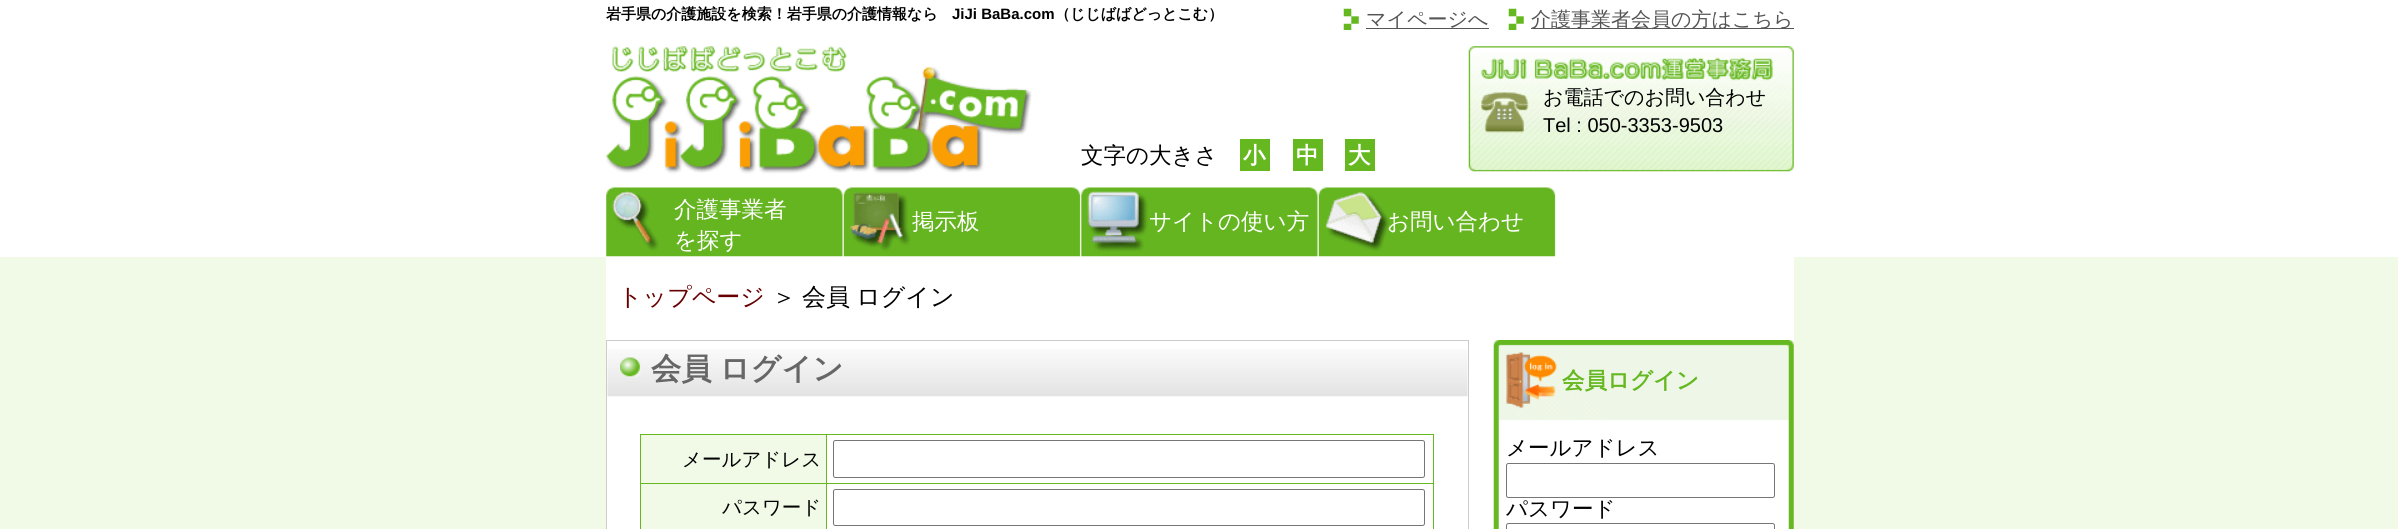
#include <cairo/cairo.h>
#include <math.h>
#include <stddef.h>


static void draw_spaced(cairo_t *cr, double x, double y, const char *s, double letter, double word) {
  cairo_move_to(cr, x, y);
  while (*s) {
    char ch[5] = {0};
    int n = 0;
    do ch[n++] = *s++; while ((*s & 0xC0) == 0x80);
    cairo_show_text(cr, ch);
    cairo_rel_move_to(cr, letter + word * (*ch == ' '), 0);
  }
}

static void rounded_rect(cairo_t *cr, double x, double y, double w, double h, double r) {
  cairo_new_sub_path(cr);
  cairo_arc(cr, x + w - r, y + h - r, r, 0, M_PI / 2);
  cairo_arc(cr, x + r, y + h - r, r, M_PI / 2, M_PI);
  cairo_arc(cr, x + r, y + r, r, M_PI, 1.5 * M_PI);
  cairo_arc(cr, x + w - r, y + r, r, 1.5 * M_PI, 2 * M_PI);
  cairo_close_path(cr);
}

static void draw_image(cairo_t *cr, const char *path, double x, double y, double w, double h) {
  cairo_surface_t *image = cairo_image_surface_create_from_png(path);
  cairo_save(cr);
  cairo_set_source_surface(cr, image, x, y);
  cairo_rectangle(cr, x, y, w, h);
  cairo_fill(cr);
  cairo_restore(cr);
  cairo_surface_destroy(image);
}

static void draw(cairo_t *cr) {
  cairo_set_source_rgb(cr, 240 / 255.0, 250 / 255.0, 231 / 255.0);
  cairo_paint(cr);
  cairo_set_source_rgb(cr, 1, 1, 1);
  cairo_rectangle(cr, 0, 0, 2398, 257);
  cairo_fill(cr);
  cairo_rectangle(cr, 606, 257, 1188, 272);
  cairo_fill(cr);
  draw_image(cr, "images/1.png", 1343, 8, 16, 22);
  cairo_set_source_rgb(cr, 85 / 255.0, 85 / 255.0, 85 / 255.0);
  cairo_rectangle(cr, 1366, 28, 123, 1);
  cairo_fill(cr);
  draw_image(cr, "images/1.png", 1508, 8, 16, 22);
  cairo_rectangle(cr, 1531, 28, 263, 1);
  cairo_fill(cr);
  draw_image(cr, "images/2.png", 606, 46, 426, 128);
  draw_image(cr, "images/3.png", 1468, 46, 326, 126);
  cairo_set_source_rgb(cr, 102 / 255.0, 184 / 255.0, 33 / 255.0);
  cairo_rectangle(cr, 1240, 139, 30, 32);
  cairo_fill(cr);
  cairo_rectangle(cr, 1293, 139, 30, 32);
  cairo_fill(cr);
  cairo_rectangle(cr, 1345, 139, 30, 32);
  cairo_fill(cr);
  draw_image(cr, "images/4.png", 606, 187, 950, 70);
  cairo_rectangle(cr, 606.5, 340.5, 862, 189);
  cairo_set_source_rgb(cr, 204 / 255.0, 204 / 255.0, 204 / 255.0);
  cairo_set_line_width(cr, 1);
  cairo_stroke(cr);
  draw_image(cr, "images/5.png", 607, 349, 861, 48);
  draw_image(cr, "images/6.png", 620, 357, 21, 21);
  cairo_set_source_rgb(cr, 240 / 255.0, 250 / 255.0, 231 / 255.0);
  cairo_rectangle(cr, 641, 435, 185, 48);
  cairo_fill(cr);
  cairo_set_source_rgb(cr, 102 / 255.0, 184 / 255.0, 33 / 255.0);
  cairo_rectangle(cr, 826, 434, 608, 1);
  cairo_fill(cr);
  cairo_rectangle(cr, 826, 483, 608, 1);
  cairo_fill(cr);
  cairo_rectangle(cr, 826, 483, 1, 46);
  cairo_fill(cr);
  cairo_rectangle(cr, 640, 483, 188, 1);
  cairo_fill(cr);
  cairo_rectangle(cr, 826, 434, 1, 50);
  cairo_fill(cr);
  cairo_rectangle(cr, 640, 434, 188, 1);
  cairo_fill(cr);
  cairo_rectangle(cr, 640, 483, 1, 46);
  cairo_fill(cr);
  cairo_rectangle(cr, 640, 434, 1, 50);
  cairo_fill(cr);
  cairo_rectangle(cr, 1433, 483, 1, 46);
  cairo_fill(cr);
  cairo_rectangle(cr, 1433, 434, 1, 50);
  cairo_fill(cr);
  rounded_rect(cr, 833.5, 440.5, 591, 37, 2);
  cairo_set_source_rgb(cr, 118 / 255.0, 118 / 255.0, 118 / 255.0);
  cairo_stroke(cr);
  cairo_set_source_rgb(cr, 240 / 255.0, 250 / 255.0, 231 / 255.0);
  cairo_rectangle(cr, 641, 484, 185, 45);
  cairo_fill(cr);
  rounded_rect(cr, 833.5, 489.5, 591, 36, 2);
  cairo_set_source_rgb(cr, 118 / 255.0, 118 / 255.0, 118 / 255.0);
  cairo_stroke(cr);
  draw_image(cr, "images/7.png", 1493, 340, 301, 189);
  rounded_rect(cr, 1506.5, 463.5, 268, 34, 2);
  cairo_stroke(cr);
  rounded_rect(cr, 1506.5, 523.5, 268, 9, 2);
  cairo_stroke(cr);
  cairo_select_font_face(cr, "WenQuanYi Zen Hei", CAIRO_FONT_SLANT_NORMAL, CAIRO_FONT_WEIGHT_BOLD);
  cairo_set_font_size(cr, 15);
  cairo_set_source_rgb(cr, 0, 0, 0);
  cairo_move_to(cr, 606, 19);
  cairo_show_text(cr, "岩手県の介護施設を検索！岩手県の介護情報なら");
  cairo_select_font_face(cr, "Liberation Sans", CAIRO_FONT_SLANT_NORMAL, CAIRO_FONT_WEIGHT_BOLD);
  cairo_move_to(cr, 952, 19);
  cairo_show_text(cr, "JiJi BaBa.com");
  cairo_select_font_face(cr, "WenQuanYi Zen Hei", CAIRO_FONT_SLANT_NORMAL, CAIRO_FONT_WEIGHT_BOLD);
  cairo_move_to(cr, 1055, 19);
  cairo_show_text(cr, "（じじばばどっとこむ）");
  cairo_select_font_face(cr, "WenQuanYi Zen Hei Medium", CAIRO_FONT_SLANT_NORMAL, CAIRO_FONT_WEIGHT_NORMAL);
  cairo_set_font_size(cr, 20);
  cairo_set_source_rgb(cr, 85 / 255.0, 85 / 255.0, 85 / 255.0);
  cairo_move_to(cr, 1366, 26);
  cairo_show_text(cr, "マイページへ");
  cairo_move_to(cr, 1531, 26);
  cairo_show_text(cr, "介護事業者会員の方はこちら");
  cairo_set_source_rgb(cr, 0, 0, 0);
  cairo_move_to(cr, 1543, 104);
  cairo_show_text(cr, "お電話でのお問い合わせ");
  cairo_select_font_face(cr, "Liberation Sans", CAIRO_FONT_SLANT_NORMAL, CAIRO_FONT_WEIGHT_NORMAL);
  cairo_move_to(cr, 1543, 132);
  cairo_show_text(cr, "Tel : 050-3353-9503");
  cairo_select_font_face(cr, "WenQuanYi Zen Hei Medium", CAIRO_FONT_SLANT_NORMAL, CAIRO_FONT_WEIGHT_NORMAL);
  cairo_set_font_size(cr, 22.5);
  cairo_move_to(cr, 1081, 163);
  cairo_show_text(cr, "文字の大きさ");
  cairo_select_font_face(cr, "WenQuanYi Zen Hei", CAIRO_FONT_SLANT_NORMAL, CAIRO_FONT_WEIGHT_BOLD);
  cairo_set_source_rgb(cr, 1, 1, 1);
  cairo_move_to(cr, 1243, 163);
  cairo_show_text(cr, "小");
  cairo_move_to(cr, 1296, 163);
  cairo_show_text(cr, "中");
  cairo_move_to(cr, 1348, 163);
  cairo_show_text(cr, "大");
  cairo_select_font_face(cr, "WenQuanYi Zen Hei Medium", CAIRO_FONT_SLANT_NORMAL, CAIRO_FONT_WEIGHT_NORMAL);
  cairo_move_to(cr, 674, 217);
  cairo_show_text(cr, "介護事業者");
  cairo_move_to(cr, 674, 248);
  cairo_show_text(cr, "を探す");
  cairo_move_to(cr, 912, 229);
  cairo_show_text(cr, "掲示板");
  cairo_move_to(cr, 1149, 229);
  cairo_show_text(cr, "サイトの使い方");
  cairo_move_to(cr, 1387, 229);
  cairo_show_text(cr, "お問い合わせ");
  cairo_set_font_size(cr, 24);
  cairo_set_source_rgb(cr, 103 / 255.0, 0, 1 / 255.0);
  cairo_move_to(cr, 618, 305);
  cairo_show_text(cr, "トップページ");
  cairo_set_source_rgb(cr, 0, 0, 0);
  cairo_move_to(cr, 772, 305);
  cairo_show_text(cr, "＞");
  draw_spaced(cr, 802, 305, "会員 ログイン", 0, -1);
  cairo_select_font_face(cr, "WenQuanYi Zen Hei", CAIRO_FONT_SLANT_NORMAL, CAIRO_FONT_WEIGHT_BOLD);
  cairo_set_font_size(cr, 30.25);
  cairo_set_source_rgb(cr, 102 / 255.0, 102 / 255.0, 102 / 255.0);
  draw_spaced(cr, 651, 379, "会員 ログイン", 0, -1);
  cairo_select_font_face(cr, "WenQuanYi Zen Hei Medium", CAIRO_FONT_SLANT_NORMAL, CAIRO_FONT_WEIGHT_NORMAL);
  cairo_set_font_size(cr, 19.5);
  cairo_set_source_rgb(cr, 0, 0, 0);
  cairo_move_to(cr, 682, 466);
  cairo_show_text(cr, "メールアドレス");
  cairo_move_to(cr, 722, 514);
  cairo_show_text(cr, "パスワード");
  cairo_select_font_face(cr, "WenQuanYi Zen Hei", CAIRO_FONT_SLANT_NORMAL, CAIRO_FONT_WEIGHT_BOLD);
  cairo_set_font_size(cr, 22.5);
  cairo_set_source_rgb(cr, 102 / 255.0, 184 / 255.0, 33 / 255.0);
  cairo_move_to(cr, 1562, 388);
  cairo_show_text(cr, "会員ログイン");
  cairo_select_font_face(cr, "WenQuanYi Zen Hei Medium", CAIRO_FONT_SLANT_NORMAL, CAIRO_FONT_WEIGHT_NORMAL);
  cairo_set_font_size(cr, 21.5);
  cairo_set_source_rgb(cr, 0, 0, 0);
  cairo_move_to(cr, 1506, 455);
  cairo_show_text(cr, "メールアドレス");
  cairo_move_to(cr, 1506, 516);
  cairo_show_text(cr, "パスワード");
}

int main(void) {
  cairo_surface_t *surface = cairo_image_surface_create(CAIRO_FORMAT_RGB24, 2398, 529);
  cairo_t *cr = cairo_create(surface);
  cairo_font_options_t *options = cairo_font_options_create();
  cairo_font_options_set_hint_metrics(options, CAIRO_HINT_METRICS_OFF);
  cairo_font_options_set_hint_style(options, CAIRO_HINT_STYLE_NONE);
  cairo_set_font_options(cr, options);
  cairo_set_miter_limit(cr, 4);
  draw(cr);
  cairo_surface_write_to_png(surface, "out.png");
  cairo_font_options_destroy(options);
  cairo_destroy(cr);
  cairo_surface_destroy(surface);
  return 0;
}
